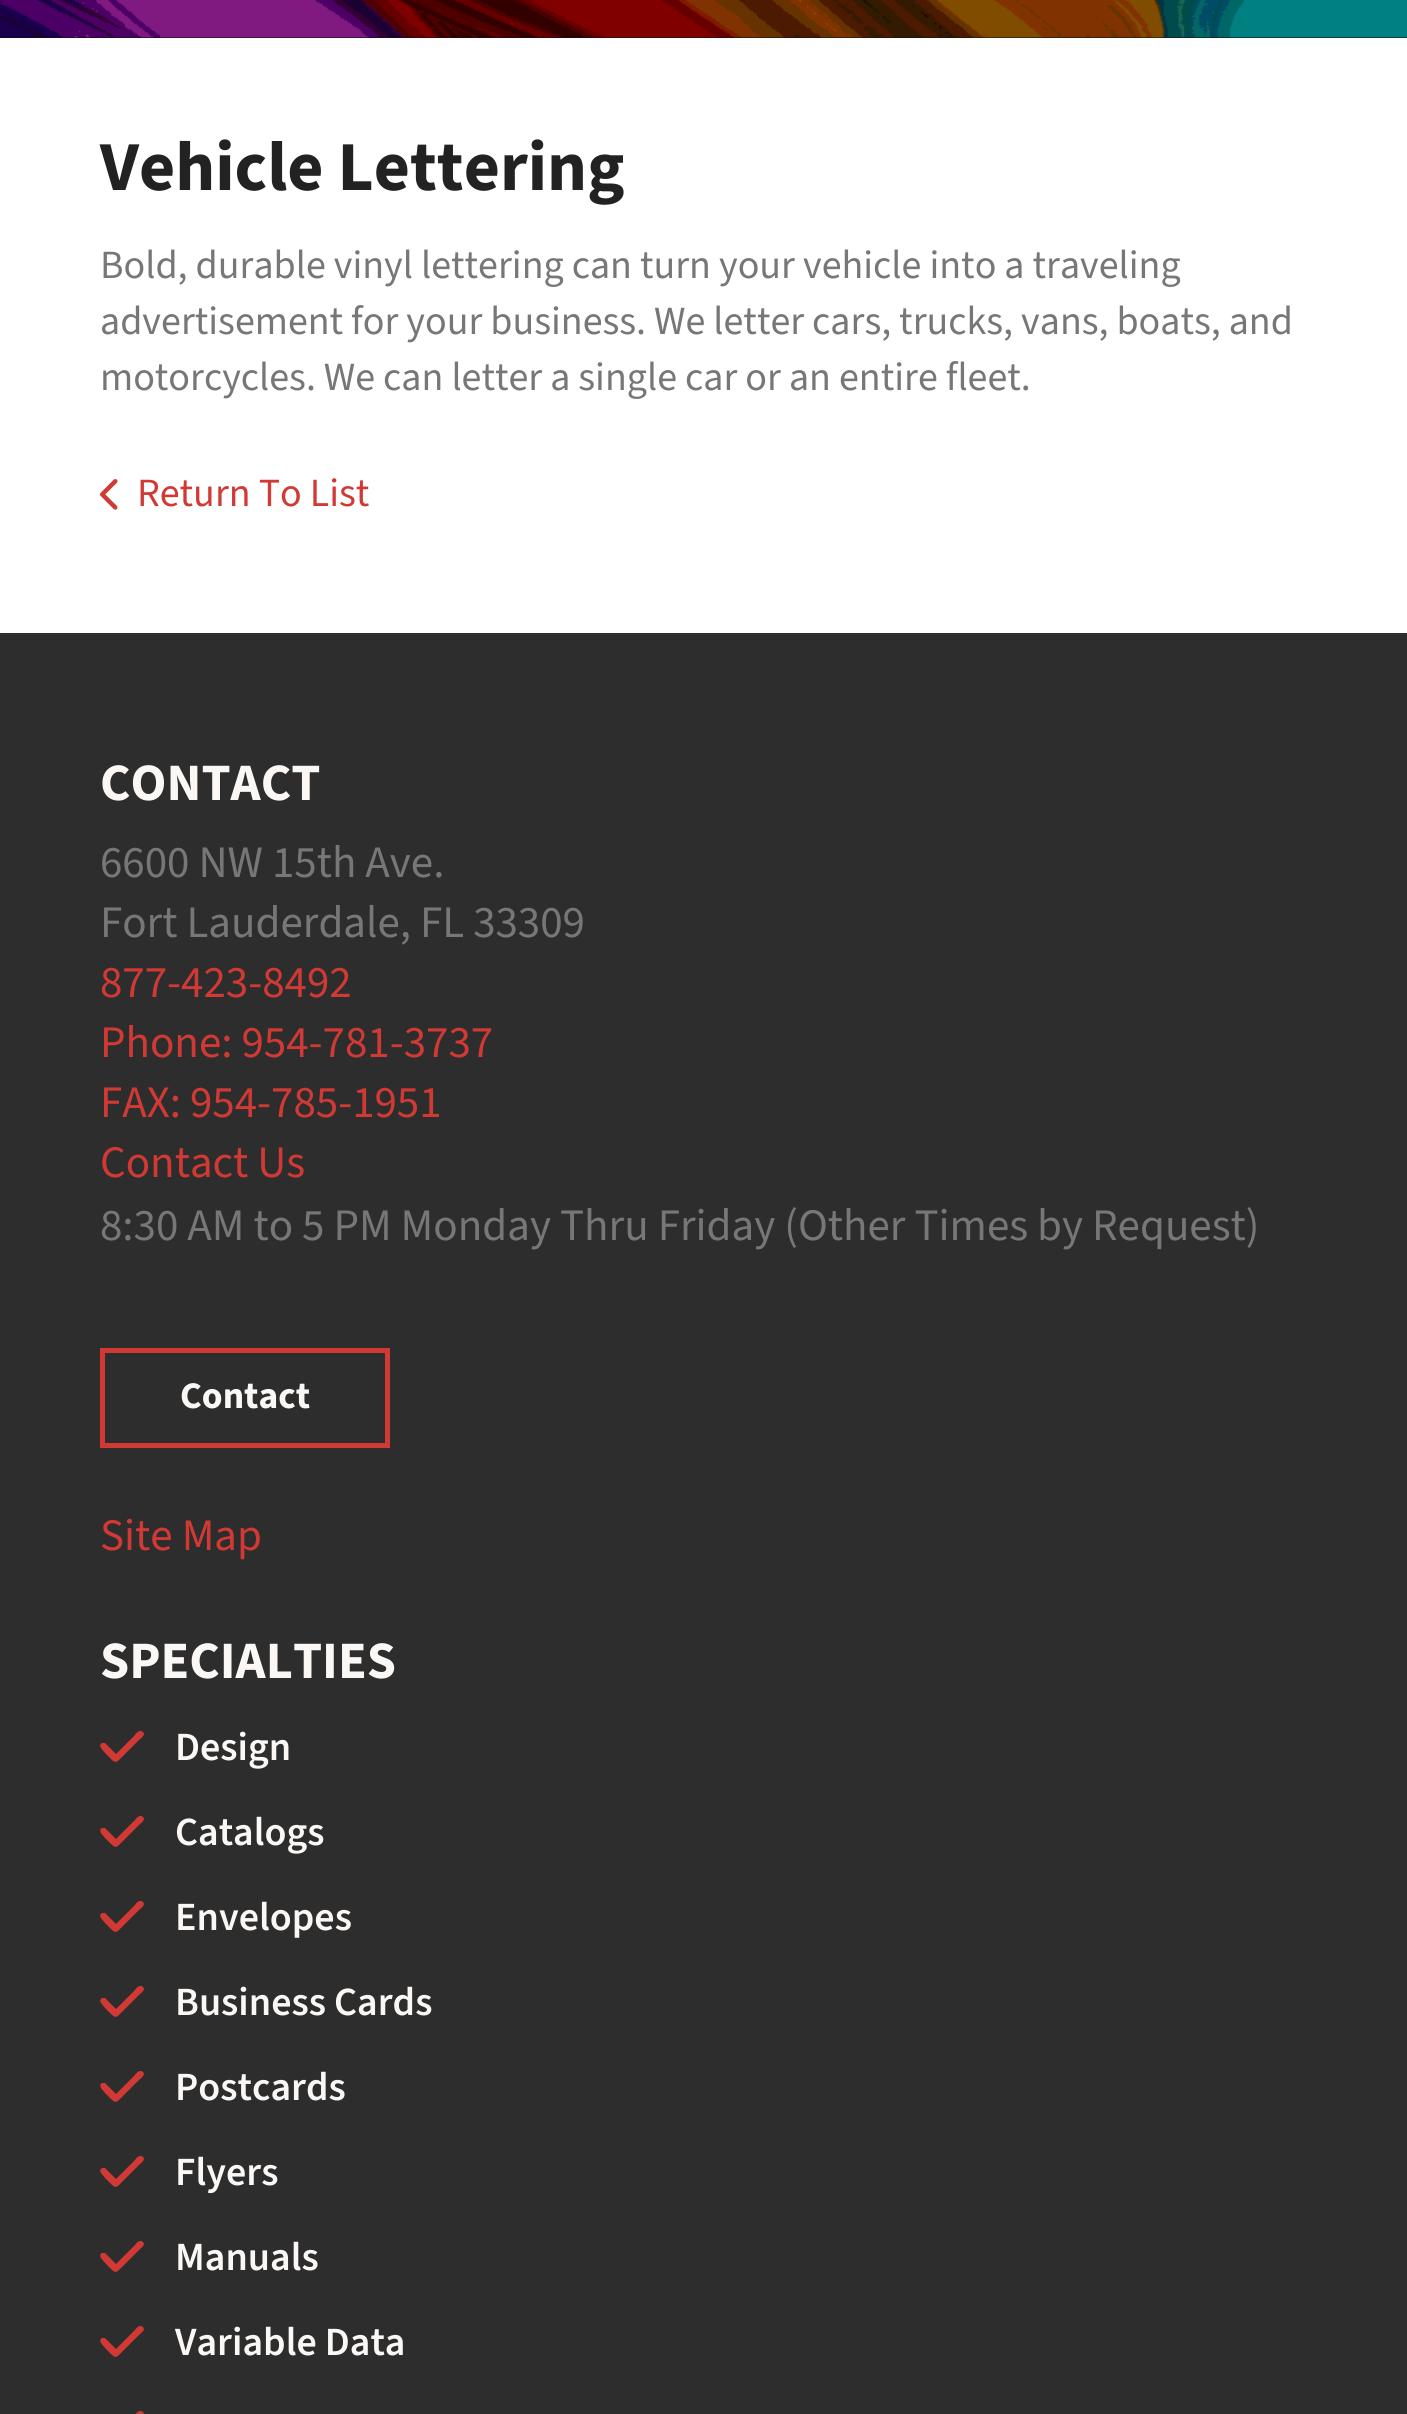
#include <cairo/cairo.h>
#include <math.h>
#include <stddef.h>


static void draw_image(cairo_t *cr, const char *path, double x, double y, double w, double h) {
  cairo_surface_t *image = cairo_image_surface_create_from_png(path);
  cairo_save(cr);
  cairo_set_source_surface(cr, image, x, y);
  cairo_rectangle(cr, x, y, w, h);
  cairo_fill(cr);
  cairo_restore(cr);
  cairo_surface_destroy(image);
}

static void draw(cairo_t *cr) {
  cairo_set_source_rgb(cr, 13 / 255.0, 12 / 255.0, 12 / 255.0);
  cairo_paint(cr);
  draw_image(cr, "images/1.png", 0, 0, 1407, 38);
  cairo_set_source_rgb(cr, 1, 1, 1);
  cairo_rectangle(cr, 0, 38, 1407, 595);
  cairo_fill(cr);
  draw_image(cr, "images/2.png", 100, 479, 18, 31);
  cairo_set_source_rgb(cr, 45 / 255.0, 45 / 255.0, 45 / 255.0);
  cairo_rectangle(cr, 0, 633, 1407, 1781);
  cairo_fill(cr);
  cairo_rectangle(cr, 102.5, 1350.5, 285, 95);
  cairo_set_source_rgb(cr, 209 / 255.0, 57 / 255.0, 52 / 255.0);
  cairo_set_line_width(cr, 5);
  cairo_stroke(cr);
  cairo_new_path(cr);
  cairo_move_to(cr, 143, 1732);
  cairo_curve_to(cr, 146, 1735, 141, 1738, 139, 1740);
  cairo_line_to(cr, 122, 1757);
  cairo_curve_to(cr, 117, 1762, 116, 1764, 111, 1759);
  cairo_line_to(cr, 105, 1753);
  cairo_curve_to(cr, 104, 1751, 97, 1746, 102, 1743);
  cairo_line_to(cr, 105, 1743);
  cairo_line_to(cr, 116, 1754);
  cairo_line_to(cr, 135, 1735);
  cairo_curve_to(cr, 136, 1733, 140, 1729, 143, 1732);
  cairo_close_path(cr);
  cairo_fill(cr);
  cairo_new_path(cr);
  cairo_move_to(cr, 143, 1817);
  cairo_curve_to(cr, 146, 1820, 141, 1823, 139, 1825);
  cairo_line_to(cr, 122, 1842);
  cairo_curve_to(cr, 117, 1847, 116, 1849, 111, 1844);
  cairo_line_to(cr, 105, 1838);
  cairo_curve_to(cr, 104, 1836, 97, 1831, 102, 1828);
  cairo_line_to(cr, 105, 1828);
  cairo_line_to(cr, 116, 1839);
  cairo_line_to(cr, 135, 1820);
  cairo_curve_to(cr, 136, 1818, 140, 1814, 143, 1817);
  cairo_close_path(cr);
  cairo_fill(cr);
  cairo_new_path(cr);
  cairo_move_to(cr, 143, 1902);
  cairo_curve_to(cr, 146, 1905, 141, 1908, 139, 1910);
  cairo_line_to(cr, 122, 1927);
  cairo_curve_to(cr, 117, 1932, 116, 1934, 111, 1929);
  cairo_line_to(cr, 105, 1923);
  cairo_curve_to(cr, 104, 1921, 97, 1916, 102, 1913);
  cairo_line_to(cr, 105, 1913);
  cairo_line_to(cr, 116, 1924);
  cairo_line_to(cr, 135, 1905);
  cairo_curve_to(cr, 136, 1903, 140, 1899, 143, 1902);
  cairo_close_path(cr);
  cairo_fill(cr);
  cairo_new_path(cr);
  cairo_move_to(cr, 143, 1987);
  cairo_curve_to(cr, 146, 1990, 141, 1993, 139, 1995);
  cairo_line_to(cr, 122, 2012);
  cairo_curve_to(cr, 117, 2017, 116, 2019, 111, 2014);
  cairo_line_to(cr, 105, 2008);
  cairo_curve_to(cr, 104, 2006, 97, 2001, 102, 1998);
  cairo_line_to(cr, 105, 1998);
  cairo_line_to(cr, 116, 2009);
  cairo_line_to(cr, 135, 1990);
  cairo_curve_to(cr, 136, 1988, 140, 1984, 143, 1987);
  cairo_close_path(cr);
  cairo_fill(cr);
  cairo_new_path(cr);
  cairo_move_to(cr, 143, 2072);
  cairo_curve_to(cr, 146, 2075, 141, 2078, 139, 2080);
  cairo_line_to(cr, 122, 2097);
  cairo_curve_to(cr, 117, 2102, 116, 2104, 111, 2099);
  cairo_line_to(cr, 105, 2093);
  cairo_curve_to(cr, 104, 2091, 97, 2086, 102, 2083);
  cairo_line_to(cr, 105, 2083);
  cairo_line_to(cr, 116, 2094);
  cairo_line_to(cr, 135, 2075);
  cairo_curve_to(cr, 136, 2073, 140, 2069, 143, 2072);
  cairo_close_path(cr);
  cairo_fill(cr);
  cairo_new_path(cr);
  cairo_move_to(cr, 143, 2157);
  cairo_curve_to(cr, 146, 2160, 141, 2163, 139, 2165);
  cairo_line_to(cr, 122, 2182);
  cairo_curve_to(cr, 117, 2187, 116, 2189, 111, 2184);
  cairo_line_to(cr, 105, 2178);
  cairo_curve_to(cr, 104, 2176, 97, 2171, 102, 2168);
  cairo_line_to(cr, 105, 2168);
  cairo_line_to(cr, 116, 2179);
  cairo_line_to(cr, 135, 2160);
  cairo_curve_to(cr, 136, 2158, 140, 2154, 143, 2157);
  cairo_close_path(cr);
  cairo_fill(cr);
  cairo_new_path(cr);
  cairo_move_to(cr, 143, 2242);
  cairo_curve_to(cr, 146, 2245, 141, 2248, 139, 2250);
  cairo_line_to(cr, 122, 2267);
  cairo_curve_to(cr, 117, 2272, 116, 2274, 111, 2269);
  cairo_line_to(cr, 105, 2263);
  cairo_curve_to(cr, 104, 2261, 97, 2256, 102, 2253);
  cairo_line_to(cr, 105, 2253);
  cairo_line_to(cr, 116, 2264);
  cairo_line_to(cr, 135, 2245);
  cairo_curve_to(cr, 136, 2243, 140, 2239, 143, 2242);
  cairo_close_path(cr);
  cairo_fill(cr);
  cairo_new_path(cr);
  cairo_move_to(cr, 143, 2327);
  cairo_curve_to(cr, 146, 2330, 141, 2333, 139, 2335);
  cairo_line_to(cr, 122, 2352);
  cairo_curve_to(cr, 117, 2357, 116, 2359, 111, 2354);
  cairo_line_to(cr, 105, 2348);
  cairo_curve_to(cr, 104, 2346, 97, 2341, 102, 2338);
  cairo_line_to(cr, 105, 2338);
  cairo_line_to(cr, 116, 2349);
  cairo_line_to(cr, 135, 2330);
  cairo_curve_to(cr, 136, 2328, 140, 2324, 143, 2327);
  cairo_close_path(cr);
  cairo_fill(cr);
  cairo_new_path(cr);
  cairo_move_to(cr, 143, 2412);
  cairo_curve_to(cr, 146, 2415, 141, 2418, 139, 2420);
  cairo_line_to(cr, 122, 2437);
  cairo_curve_to(cr, 117, 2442, 116, 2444, 111, 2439);
  cairo_line_to(cr, 105, 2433);
  cairo_curve_to(cr, 104, 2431, 97, 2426, 102, 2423);
  cairo_line_to(cr, 105, 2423);
  cairo_line_to(cr, 116, 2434);
  cairo_line_to(cr, 135, 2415);
  cairo_curve_to(cr, 136, 2413, 140, 2409, 143, 2412);
  cairo_close_path(cr);
  cairo_fill(cr);
  cairo_select_font_face(cr, "Source Sans 3", CAIRO_FONT_SLANT_NORMAL, CAIRO_FONT_WEIGHT_BOLD);
  cairo_set_font_size(cr, 70);
  cairo_set_source_rgb(cr, 34 / 255.0, 34 / 255.0, 34 / 255.0);
  cairo_move_to(cr, 100, 190);
  cairo_show_text(cr, "Vehicle Lettering");
  cairo_select_font_face(cr, "Source Sans 3", CAIRO_FONT_SLANT_NORMAL, CAIRO_FONT_WEIGHT_NORMAL);
  cairo_set_font_size(cr, 40);
  cairo_set_source_rgb(cr, 120 / 255.0, 119 / 255.0, 119 / 255.0);
  cairo_move_to(cr, 100, 278);
  cairo_show_text(cr, "Bold, durable vinyl lettering can turn your vehicle into a traveling");
  cairo_move_to(cr, 100, 334);
  cairo_show_text(cr, "advertisement for your business. We letter cars, trucks, vans, boats, and");
  cairo_move_to(cr, 100, 390);
  cairo_show_text(cr, "motorcycles. We can letter a single car or an entire fleet.");
  cairo_set_source_rgb(cr, 209 / 255.0, 57 / 255.0, 52 / 255.0);
  cairo_move_to(cr, 137, 506);
  cairo_show_text(cr, "Return To List");
  cairo_select_font_face(cr, "Source Sans 3", CAIRO_FONT_SLANT_NORMAL, CAIRO_FONT_WEIGHT_BOLD);
  cairo_set_font_size(cr, 52.5);
  cairo_set_source_rgb(cr, 250 / 255.0, 247 / 255.0, 245 / 255.0);
  cairo_move_to(cr, 100, 800);
  cairo_show_text(cr, "CONTACT");
  cairo_select_font_face(cr, "Source Sans 3", CAIRO_FONT_SLANT_NORMAL, CAIRO_FONT_WEIGHT_NORMAL);
  cairo_set_font_size(cr, 45);
  cairo_set_source_rgb(cr, 120 / 255.0, 119 / 255.0, 119 / 255.0);
  cairo_move_to(cr, 100, 877);
  cairo_show_text(cr, "6600 NW 15th Ave.");
  cairo_move_to(cr, 100, 937);
  cairo_show_text(cr, "Fort Lauderdale, FL 33309");
  cairo_set_source_rgb(cr, 209 / 255.0, 57 / 255.0, 52 / 255.0);
  cairo_move_to(cr, 100, 997);
  cairo_show_text(cr, "877-423-8492");
  cairo_move_to(cr, 100, 1057);
  cairo_show_text(cr, "Phone: 954-781-3737");
  cairo_move_to(cr, 100, 1117);
  cairo_show_text(cr, "FAX: 954-785-1951");
  cairo_move_to(cr, 100, 1177);
  cairo_show_text(cr, "Contact Us");
  cairo_set_source_rgb(cr, 120 / 255.0, 119 / 255.0, 119 / 255.0);
  cairo_move_to(cr, 100, 1240);
  cairo_show_text(cr, "8:30 AM to 5 PM Monday Thru Friday (Other Times by Request)");
  cairo_select_font_face(cr, "Source Sans 3", CAIRO_FONT_SLANT_NORMAL, CAIRO_FONT_WEIGHT_BOLD);
  cairo_set_font_size(cr, 37.5);
  cairo_set_source_rgb(cr, 250 / 255.0, 247 / 255.0, 245 / 255.0);
  cairo_move_to(cr, 180, 1408);
  cairo_show_text(cr, "Contact");
  cairo_select_font_face(cr, "Source Sans 3", CAIRO_FONT_SLANT_NORMAL, CAIRO_FONT_WEIGHT_NORMAL);
  cairo_set_font_size(cr, 45);
  cairo_set_source_rgb(cr, 209 / 255.0, 57 / 255.0, 52 / 255.0);
  cairo_move_to(cr, 100, 1550);
  cairo_show_text(cr, "Site Map");
  cairo_select_font_face(cr, "Source Sans 3", CAIRO_FONT_SLANT_NORMAL, CAIRO_FONT_WEIGHT_BOLD);
  cairo_set_font_size(cr, 52.5);
  cairo_set_source_rgb(cr, 250 / 255.0, 247 / 255.0, 245 / 255.0);
  cairo_move_to(cr, 100, 1678);
  cairo_show_text(cr, "SPECIALTIES");
  cairo_select_font_face(cr, "Source Sans 3 SemiBold", CAIRO_FONT_SLANT_NORMAL, CAIRO_FONT_WEIGHT_NORMAL);
  cairo_set_font_size(cr, 40);
  cairo_move_to(cr, 175, 1760);
  cairo_show_text(cr, "Design");
  cairo_move_to(cr, 175, 1845);
  cairo_show_text(cr, "Catalogs");
  cairo_move_to(cr, 175, 1930);
  cairo_show_text(cr, "Envelopes");
  cairo_move_to(cr, 175, 2015);
  cairo_show_text(cr, "Business Cards");
  cairo_move_to(cr, 175, 2100);
  cairo_show_text(cr, "Postcards");
  cairo_move_to(cr, 175, 2185);
  cairo_show_text(cr, "Flyers");
  cairo_move_to(cr, 175, 2270);
  cairo_show_text(cr, "Manuals");
  cairo_move_to(cr, 175, 2355);
  cairo_show_text(cr, "Variable Data");
}

int main(void) {
  cairo_surface_t *surface = cairo_image_surface_create(CAIRO_FORMAT_RGB24, 1407, 2414);
  cairo_t *cr = cairo_create(surface);
  cairo_font_options_t *options = cairo_font_options_create();
  cairo_font_options_set_hint_metrics(options, CAIRO_HINT_METRICS_OFF);
  cairo_font_options_set_hint_style(options, CAIRO_HINT_STYLE_NONE);
  cairo_set_font_options(cr, options);
  cairo_set_miter_limit(cr, 4);
  draw(cr);
  cairo_surface_write_to_png(surface, "out.png");
  cairo_font_options_destroy(options);
  cairo_destroy(cr);
  cairo_surface_destroy(surface);
  return 0;
}
